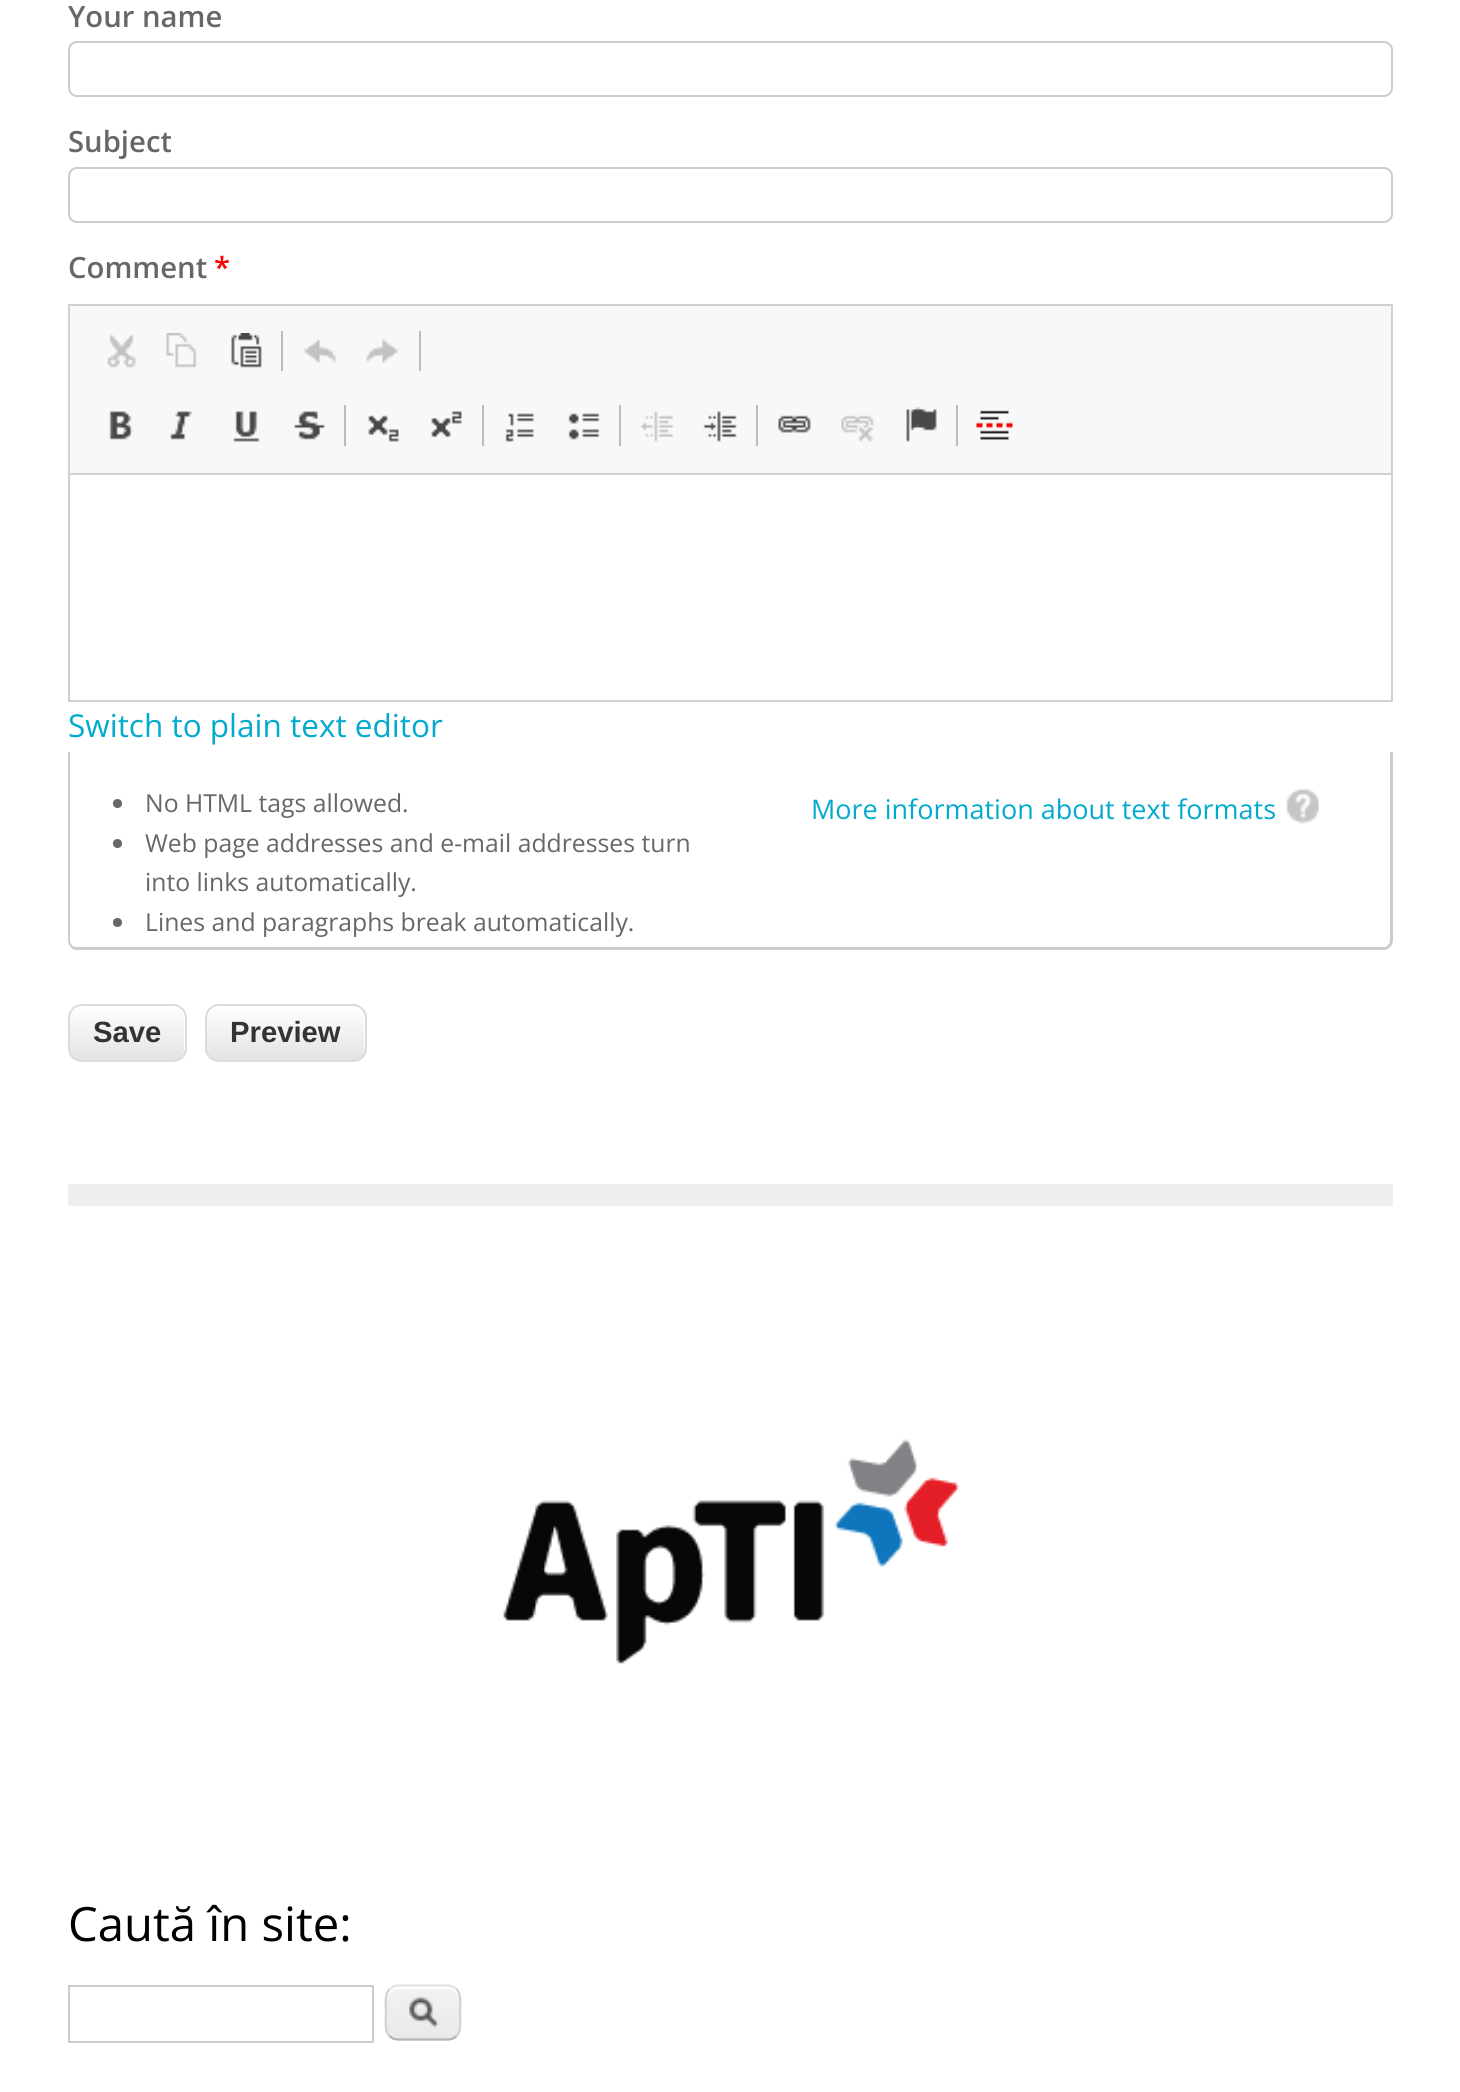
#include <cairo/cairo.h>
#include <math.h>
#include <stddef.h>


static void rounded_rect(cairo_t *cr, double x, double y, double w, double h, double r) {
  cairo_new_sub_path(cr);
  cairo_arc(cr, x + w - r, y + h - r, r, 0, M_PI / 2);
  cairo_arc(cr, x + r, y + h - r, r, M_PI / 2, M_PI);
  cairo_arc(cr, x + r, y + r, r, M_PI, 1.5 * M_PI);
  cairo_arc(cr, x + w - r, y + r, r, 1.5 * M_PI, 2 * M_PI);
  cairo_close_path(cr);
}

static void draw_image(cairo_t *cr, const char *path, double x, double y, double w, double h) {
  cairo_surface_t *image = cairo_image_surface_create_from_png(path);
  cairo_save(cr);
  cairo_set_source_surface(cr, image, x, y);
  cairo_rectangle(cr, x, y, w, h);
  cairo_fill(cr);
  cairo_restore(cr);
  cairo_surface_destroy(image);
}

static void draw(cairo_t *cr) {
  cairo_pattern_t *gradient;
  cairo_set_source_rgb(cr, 1, 1, 1);
  cairo_paint(cr);
  rounded_rect(cr, 69, 42, 1323, 54, 8);
  cairo_set_source_rgb(cr, 204 / 255.0, 204 / 255.0, 204 / 255.0);
  cairo_stroke(cr);
  rounded_rect(cr, 69, 168, 1323, 54, 8);
  cairo_stroke(cr);
  cairo_rectangle(cr, 69, 305, 1323, 396);
  cairo_set_source_rgb(cr, 209 / 255.0, 209 / 255.0, 209 / 255.0);
  cairo_stroke(cr);
  cairo_set_source_rgb(cr, 248 / 255.0, 248 / 255.0, 248 / 255.0);
  cairo_rectangle(cr, 70, 306, 1321, 167);
  cairo_fill(cr);
  cairo_set_source_rgb(cr, 209 / 255.0, 209 / 255.0, 209 / 255.0);
  cairo_rectangle(cr, 70, 473, 1321, 2);
  cairo_fill(cr);
  draw_image(cr, "images/1.png", 107, 334, 30, 34);
  draw_image(cr, "images/2.png", 166, 333, 31, 35);
  draw_image(cr, "images/3.png", 231, 333, 31, 35);
  cairo_set_source_rgb(cr, 188 / 255.0, 188 / 255.0, 188 / 255.0);
  cairo_rectangle(cr, 281, 331, 2, 40);
  cairo_fill(cr);
  draw_image(cr, "images/4.png", 303, 339, 33, 24);
  draw_image(cr, "images/5.png", 366, 339, 33, 24);
  cairo_rectangle(cr, 419, 331, 2, 40);
  cairo_fill(cr);
  draw_image(cr, "images/6.png", 109, 411, 24, 29);
  draw_image(cr, "images/7.png", 170, 411, 22, 29);
  draw_image(cr, "images/8.png", 233, 411, 27, 31);
  draw_image(cr, "images/9.png", 294, 411, 31, 29);
  cairo_rectangle(cr, 344, 405, 2, 41);
  cairo_fill(cr);
  draw_image(cr, "images/10.png", 368, 415, 31, 27);
  draw_image(cr, "images/11.png", 431, 411, 31, 27);
  cairo_rectangle(cr, 482, 405, 2, 41);
  cairo_fill(cr);
  draw_image(cr, "images/12.png", 505, 413, 29, 29);
  draw_image(cr, "images/13.png", 568, 413, 32, 27);
  cairo_rectangle(cr, 619, 405, 2, 41);
  cairo_fill(cr);
  draw_image(cr, "images/14.png", 640, 411, 34, 31);
  draw_image(cr, "images/15.png", 703, 411, 34, 31);
  cairo_rectangle(cr, 756, 405, 2, 41);
  cairo_fill(cr);
  draw_image(cr, "images/16.png", 778, 415, 33, 18);
  draw_image(cr, "images/17.png", 841, 415, 33, 27);
  draw_image(cr, "images/18.png", 906, 407, 31, 35);
  cairo_rectangle(cr, 956, 405, 2, 41);
  cairo_fill(cr);
  draw_image(cr, "images/19.png", 976, 410, 37, 30);
  cairo_set_source_rgb(cr, 204 / 255.0, 204 / 255.0, 204 / 255.0);
  cairo_set_fill_rule(cr, CAIRO_FILL_RULE_EVEN_ODD);
  cairo_new_path(cr);
  cairo_move_to(cr, 68, 752);
  cairo_line_to(cr, 1393, 752);
  cairo_line_to(cr, 1393, 940);
  cairo_curve_to(cr, 1393, 945, 1389, 950, 1384, 950);
  cairo_line_to(cr, 76, 950);
  cairo_curve_to(cr, 72, 950, 68, 945, 68, 940);
  cairo_close_path(cr);
  cairo_move_to(cr, 70, 752);
  cairo_line_to(cr, 1390, 752);
  cairo_line_to(cr, 1390, 940);
  cairo_curve_to(cr, 1390, 944, 1387, 947, 1384, 947);
  cairo_line_to(cr, 76, 947);
  cairo_curve_to(cr, 73, 947, 70, 944, 70, 940);
  cairo_close_path(cr);
  cairo_fill(cr);
  cairo_set_source_rgb(cr, 103 / 255.0, 103 / 255.0, 103 / 255.0);
  cairo_arc(cr, 117.5, 803.5, 4.5, 0, 2 * M_PI);
  cairo_fill(cr);
  cairo_arc(cr, 117.5, 843.5, 4.5, 0, 2 * M_PI);
  cairo_fill(cr);
  cairo_arc(cr, 117.5, 922.5, 4.5, 0, 2 * M_PI);
  cairo_fill(cr);
  draw_image(cr, "images/20.png", 1286, 789, 34, 35);
  cairo_save(cr);
  cairo_set_fill_rule(cr, CAIRO_FILL_RULE_WINDING);
  rounded_rect(cr, 68, 1004, 119, 58, 14);
  cairo_clip(cr);
  gradient = cairo_pattern_create_linear(127, 1006, 127, 1060);
  cairo_pattern_add_color_stop_rgba(gradient, 0, 1, 1, 1, 1);
  cairo_pattern_add_color_stop_rgba(gradient, 1, 227 / 255.0, 227 / 255.0, 227 / 255.0, 1);
  cairo_set_source(cr, gradient);
  cairo_pattern_destroy(gradient);
  cairo_rectangle(cr, 68, 1006, 119, 54);
  cairo_fill(cr);
  cairo_restore(cr);
  cairo_set_source_rgb(cr, 1, 1, 1);
  cairo_set_fill_rule(cr, CAIRO_FILL_RULE_WINDING);
  cairo_new_path(cr);
  cairo_move_to(cr, 81, 1008);
  cairo_line_to(cr, 173, 1008);
  cairo_curve_to(cr, 179, 1008, 184, 1013, 184, 1019);
  cairo_line_to(cr, 184, 1051);
  cairo_line_to(cr, 183, 1055);
  cairo_curve_to(cr, 184, 1053, 185, 1051, 185, 1049);
  cairo_line_to(cr, 185, 1017);
  cairo_curve_to(cr, 185, 1011, 180, 1006, 174, 1006);
  cairo_line_to(cr, 81, 1006);
  cairo_curve_to(cr, 75, 1006, 70, 1011, 70, 1017);
  cairo_line_to(cr, 70, 1019);
  cairo_curve_to(cr, 70, 1013, 75, 1008, 81, 1008);
  cairo_close_path(cr);
  cairo_fill(cr);
  rounded_rect(cr, 69, 1005, 117, 56, 13);
  cairo_set_source_rgb(cr, 219 / 255.0, 219 / 255.0, 219 / 255.0);
  cairo_stroke(cr);
  cairo_save(cr);
  rounded_rect(cr, 205, 1004, 162, 58, 14);
  cairo_clip(cr);
  gradient = cairo_pattern_create_linear(286, 1006, 286, 1060);
  cairo_pattern_add_color_stop_rgba(gradient, 0, 1, 1, 1, 1);
  cairo_pattern_add_color_stop_rgba(gradient, 1, 227 / 255.0, 227 / 255.0, 227 / 255.0, 1);
  cairo_set_source(cr, gradient);
  cairo_pattern_destroy(gradient);
  cairo_rectangle(cr, 205, 1006, 162, 54);
  cairo_fill(cr);
  cairo_restore(cr);
  cairo_set_source_rgb(cr, 1, 1, 1);
  cairo_new_path(cr);
  cairo_move_to(cr, 218, 1008);
  cairo_line_to(cr, 353, 1008);
  cairo_curve_to(cr, 359, 1008, 364, 1013, 364, 1019);
  cairo_line_to(cr, 364, 1051);
  cairo_line_to(cr, 363, 1055);
  cairo_curve_to(cr, 364, 1053, 365, 1051, 365, 1049);
  cairo_line_to(cr, 365, 1017);
  cairo_curve_to(cr, 365, 1011, 360, 1006, 354, 1006);
  cairo_line_to(cr, 218, 1006);
  cairo_curve_to(cr, 212, 1006, 207, 1011, 207, 1017);
  cairo_line_to(cr, 207, 1019);
  cairo_curve_to(cr, 207, 1013, 212, 1008, 218, 1008);
  cairo_close_path(cr);
  cairo_fill(cr);
  rounded_rect(cr, 206, 1005, 160, 56, 13);
  cairo_set_source_rgb(cr, 219 / 255.0, 219 / 255.0, 219 / 255.0);
  cairo_stroke(cr);
  cairo_set_source_rgb(cr, 238 / 255.0, 238 / 255.0, 238 / 255.0);
  cairo_rectangle(cr, 68, 1184, 1325, 22);
  cairo_fill(cr);
  draw_image(cr, "images/21.png", 503, 1439, 456, 225);
  cairo_rectangle(cr, 69, 1986, 304, 56);
  cairo_set_source_rgb(cr, 204 / 255.0, 204 / 255.0, 204 / 255.0);
  cairo_stroke(cr);
  draw_image(cr, "images/22.png", 385, 1987, 76, 54);
  cairo_set_source_rgb(cr, 1, 1, 1);
  cairo_new_path(cr);
  cairo_move_to(cr, 398, 1989);
  cairo_line_to(cr, 448, 1989);
  cairo_curve_to(cr, 454, 1989, 459, 1994, 459, 2000);
  cairo_curve_to(cr, 459, 1987, 451, 1987, 440, 1987);
  cairo_line_to(cr, 406, 1987);
  cairo_curve_to(cr, 395, 1987, 387, 1987, 387, 2000);
  cairo_curve_to(cr, 387, 1994, 392, 1989, 398, 1989);
  cairo_close_path(cr);
  cairo_fill(cr);
  cairo_new_path(cr);
  cairo_move_to(cr, 389.5, 1989);
  cairo_curve_to(cr, 392, 1987, 395, 1985.5, 398, 1985.5);
  cairo_line_to(cr, 448, 1985.5);
  cairo_curve_to(cr, 451, 1985.5, 454, 1987, 456.5, 1989);
  cairo_set_source_rgb(cr, 228 / 255.0, 228 / 255.0, 228 / 255.0);
  cairo_set_line_width(cr, 2.2);
  cairo_stroke(cr);
  cairo_new_path(cr);
  cairo_move_to(cr, 456.5, 1989);
  cairo_curve_to(cr, 462, 1995, 460, 2005.5, 460, 2012.5);
  cairo_curve_to(cr, 460, 2019.5, 462, 2030.5, 456.5, 2036);
  cairo_set_source_rgb(cr, 210 / 255.0, 210 / 255.0, 210 / 255.0);
  cairo_stroke(cr);
  cairo_new_path(cr);
  cairo_move_to(cr, 456.5, 2036);
  cairo_curve_to(cr, 454, 2038.5, 451, 2039.5, 448, 2039.5);
  cairo_line_to(cr, 398, 2039.5);
  cairo_curve_to(cr, 395, 2039.5, 392, 2038.5, 389.5, 2036);
  cairo_set_source_rgb(cr, 180 / 255.0, 180 / 255.0, 180 / 255.0);
  cairo_stroke(cr);
  cairo_new_path(cr);
  cairo_move_to(cr, 389.5, 2036);
  cairo_curve_to(cr, 384, 2030.5, 386, 2019.5, 386, 2012.5);
  cairo_curve_to(cr, 386, 2005.5, 384, 1995, 389.5, 1989);
  cairo_set_source_rgb(cr, 210 / 255.0, 210 / 255.0, 210 / 255.0);
  cairo_stroke(cr);
  cairo_select_font_face(cr, "Open Sans SemiBold", CAIRO_FONT_SLANT_NORMAL, CAIRO_FONT_WEIGHT_NORMAL);
  cairo_set_font_size(cr, 29.25);
  cairo_set_source_rgb(cr, 103 / 255.0, 103 / 255.0, 103 / 255.0);
  cairo_move_to(cr, 68, 27);
  cairo_show_text(cr, "Your name");
  cairo_move_to(cr, 68, 152);
  cairo_show_text(cr, "Subject");
  cairo_move_to(cr, 68, 278);
  cairo_show_text(cr, "Comment");
  cairo_set_source_rgb(cr, 1, 0, 0);
  cairo_move_to(cr, 214, 278);
  cairo_show_text(cr, "*");
  cairo_select_font_face(cr, "Open Sans", CAIRO_FONT_SLANT_NORMAL, CAIRO_FONT_WEIGHT_NORMAL);
  cairo_set_font_size(cr, 31.5);
  cairo_set_source_rgb(cr, 2 / 255.0, 170 / 255.0, 206 / 255.0);
  cairo_move_to(cr, 68, 737);
  cairo_show_text(cr, "Switch to plain text editor");
  cairo_set_font_size(cr, 24.75);
  cairo_set_source_rgb(cr, 103 / 255.0, 103 / 255.0, 103 / 255.0);
  cairo_move_to(cr, 145, 812);
  cairo_show_text(cr, "No HTML tags allowed.");
  cairo_move_to(cr, 145, 852);
  cairo_show_text(cr, "Web page addresses and e-mail addresses turn");
  cairo_move_to(cr, 145, 891);
  cairo_show_text(cr, "into links automatically.");
  cairo_move_to(cr, 145, 931);
  cairo_show_text(cr, "Lines and paragraphs break automatically.");
  cairo_set_font_size(cr, 27);
  cairo_set_source_rgb(cr, 2 / 255.0, 170 / 255.0, 206 / 255.0);
  cairo_move_to(cr, 811, 819);
  cairo_show_text(cr, "More information about text formats");
  cairo_select_font_face(cr, "Liberation Sans", CAIRO_FONT_SLANT_NORMAL, CAIRO_FONT_WEIGHT_BOLD);
  cairo_set_font_size(cr, 29.25);
  cairo_set_source_rgb(cr, 51 / 255.0, 51 / 255.0, 51 / 255.0);
  cairo_move_to(cr, 93, 1042);
  cairo_show_text(cr, "Save");
  cairo_move_to(cr, 230, 1042);
  cairo_show_text(cr, "Preview");
  cairo_select_font_face(cr, "Open Sans", CAIRO_FONT_SLANT_NORMAL, CAIRO_FONT_WEIGHT_NORMAL);
  cairo_set_font_size(cr, 47.25);
  cairo_set_source_rgb(cr, 0, 0, 0);
  cairo_move_to(cr, 68, 1941);
  cairo_show_text(cr, "Caută în site:");
}

int main(void) {
  cairo_surface_t *surface = cairo_image_surface_create(CAIRO_FORMAT_RGB24, 1460, 2092);
  cairo_t *cr = cairo_create(surface);
  cairo_font_options_t *options = cairo_font_options_create();
  cairo_font_options_set_hint_metrics(options, CAIRO_HINT_METRICS_OFF);
  cairo_font_options_set_hint_style(options, CAIRO_HINT_STYLE_NONE);
  cairo_set_font_options(cr, options);
  cairo_set_miter_limit(cr, 4);
  draw(cr);
  cairo_surface_write_to_png(surface, "out.png");
  cairo_font_options_destroy(options);
  cairo_destroy(cr);
  cairo_surface_destroy(surface);
  return 0;
}
